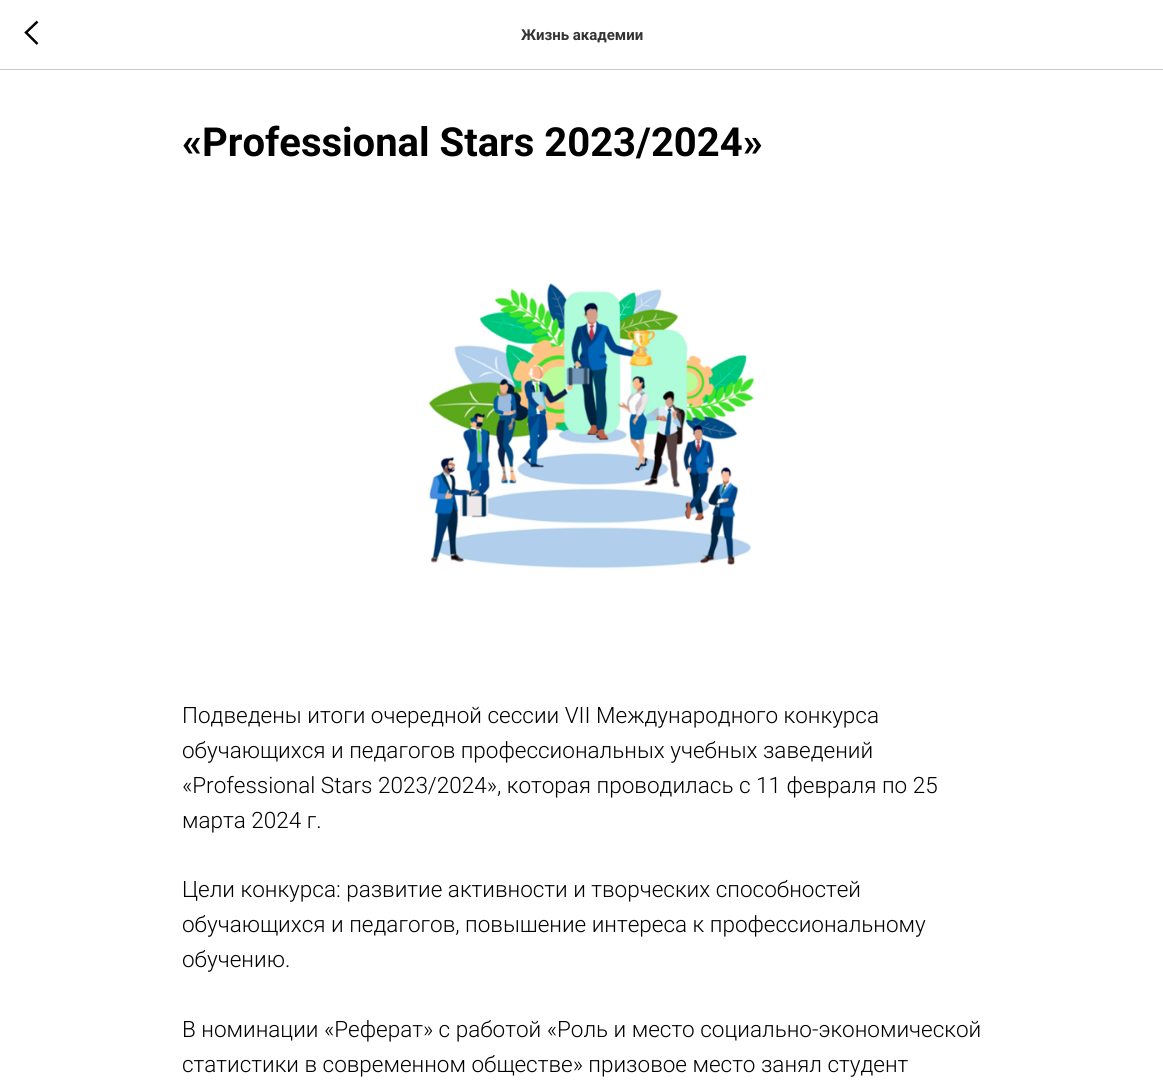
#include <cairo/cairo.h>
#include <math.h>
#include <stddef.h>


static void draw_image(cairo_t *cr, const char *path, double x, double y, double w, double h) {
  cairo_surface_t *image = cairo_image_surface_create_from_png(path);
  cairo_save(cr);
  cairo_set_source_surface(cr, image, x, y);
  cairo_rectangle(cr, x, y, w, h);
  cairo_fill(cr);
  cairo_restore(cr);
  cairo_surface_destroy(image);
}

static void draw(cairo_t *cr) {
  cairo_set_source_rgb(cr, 1, 1, 1);
  cairo_paint(cr);
  cairo_set_source_rgb(cr, 204 / 255.0, 204 / 255.0, 204 / 255.0);
  cairo_rectangle(cr, 0, 69, 1163, 1);
  cairo_fill(cr);
  cairo_new_path(cr);
  cairo_move_to(cr, 37.5, 44);
  cairo_line_to(cr, 26, 32.5);
  cairo_line_to(cr, 37.5, 21.5);
  cairo_set_source_rgb(cr, 0, 0, 0);
  cairo_set_line_width(cr, 2.5);
  cairo_stroke(cr);
  draw_image(cr, "images/1.png", 428, 283, 327, 286);
  cairo_select_font_face(cr, "Roboto", CAIRO_FONT_SLANT_NORMAL, CAIRO_FONT_WEIGHT_BOLD);
  cairo_set_font_size(cr, 15);
  cairo_set_source_rgb(cr, 51 / 255.0, 51 / 255.0, 51 / 255.0);
  cairo_move_to(cr, 521, 40);
  cairo_show_text(cr, "Жизнь академии");
  cairo_set_font_size(cr, 40);
  cairo_set_source_rgb(cr, 0, 0, 0);
  cairo_move_to(cr, 182, 156);
  cairo_show_text(cr, "«Professional Stars 2023/2024»");
  cairo_select_font_face(cr, "Roboto Light", CAIRO_FONT_SLANT_NORMAL, CAIRO_FONT_WEIGHT_NORMAL);
  cairo_set_font_size(cr, 22.5);
  cairo_move_to(cr, 182, 723);
  cairo_show_text(cr, "Подведены итоги очередной сессии VII Международного конкурса");
  cairo_move_to(cr, 182, 758);
  cairo_show_text(cr, "обучающихся и педагогов профессиональных учебных заведений");
  cairo_move_to(cr, 182, 793);
  cairo_show_text(cr, "«Professional Stars 2023/2024», которая проводилась с 11 февраля по 25");
  cairo_move_to(cr, 182, 828);
  cairo_show_text(cr, "марта 2024 г.");
  cairo_move_to(cr, 182, 897);
  cairo_show_text(cr, "Цели конкурса: развитие активности и творческих способностей");
  cairo_move_to(cr, 182, 932);
  cairo_show_text(cr, "обучающихся и педагогов, повышение интереса к профессиональному");
  cairo_move_to(cr, 182, 967);
  cairo_show_text(cr, "обучению.");
  cairo_move_to(cr, 182, 1037);
  cairo_show_text(cr, "В номинации «Реферат» с работой «Роль и место социально-экономической");
  cairo_move_to(cr, 182, 1072);
  cairo_show_text(cr, "статистики в современном обществе» призовое место занял студент");
}

int main(void) {
  cairo_surface_t *surface = cairo_image_surface_create(CAIRO_FORMAT_RGB24, 1163, 1086);
  cairo_t *cr = cairo_create(surface);
  cairo_font_options_t *options = cairo_font_options_create();
  cairo_font_options_set_hint_metrics(options, CAIRO_HINT_METRICS_OFF);
  cairo_font_options_set_hint_style(options, CAIRO_HINT_STYLE_NONE);
  cairo_set_font_options(cr, options);
  cairo_set_miter_limit(cr, 4);
  draw(cr);
  cairo_surface_write_to_png(surface, "out.png");
  cairo_font_options_destroy(options);
  cairo_destroy(cr);
  cairo_surface_destroy(surface);
  return 0;
}
